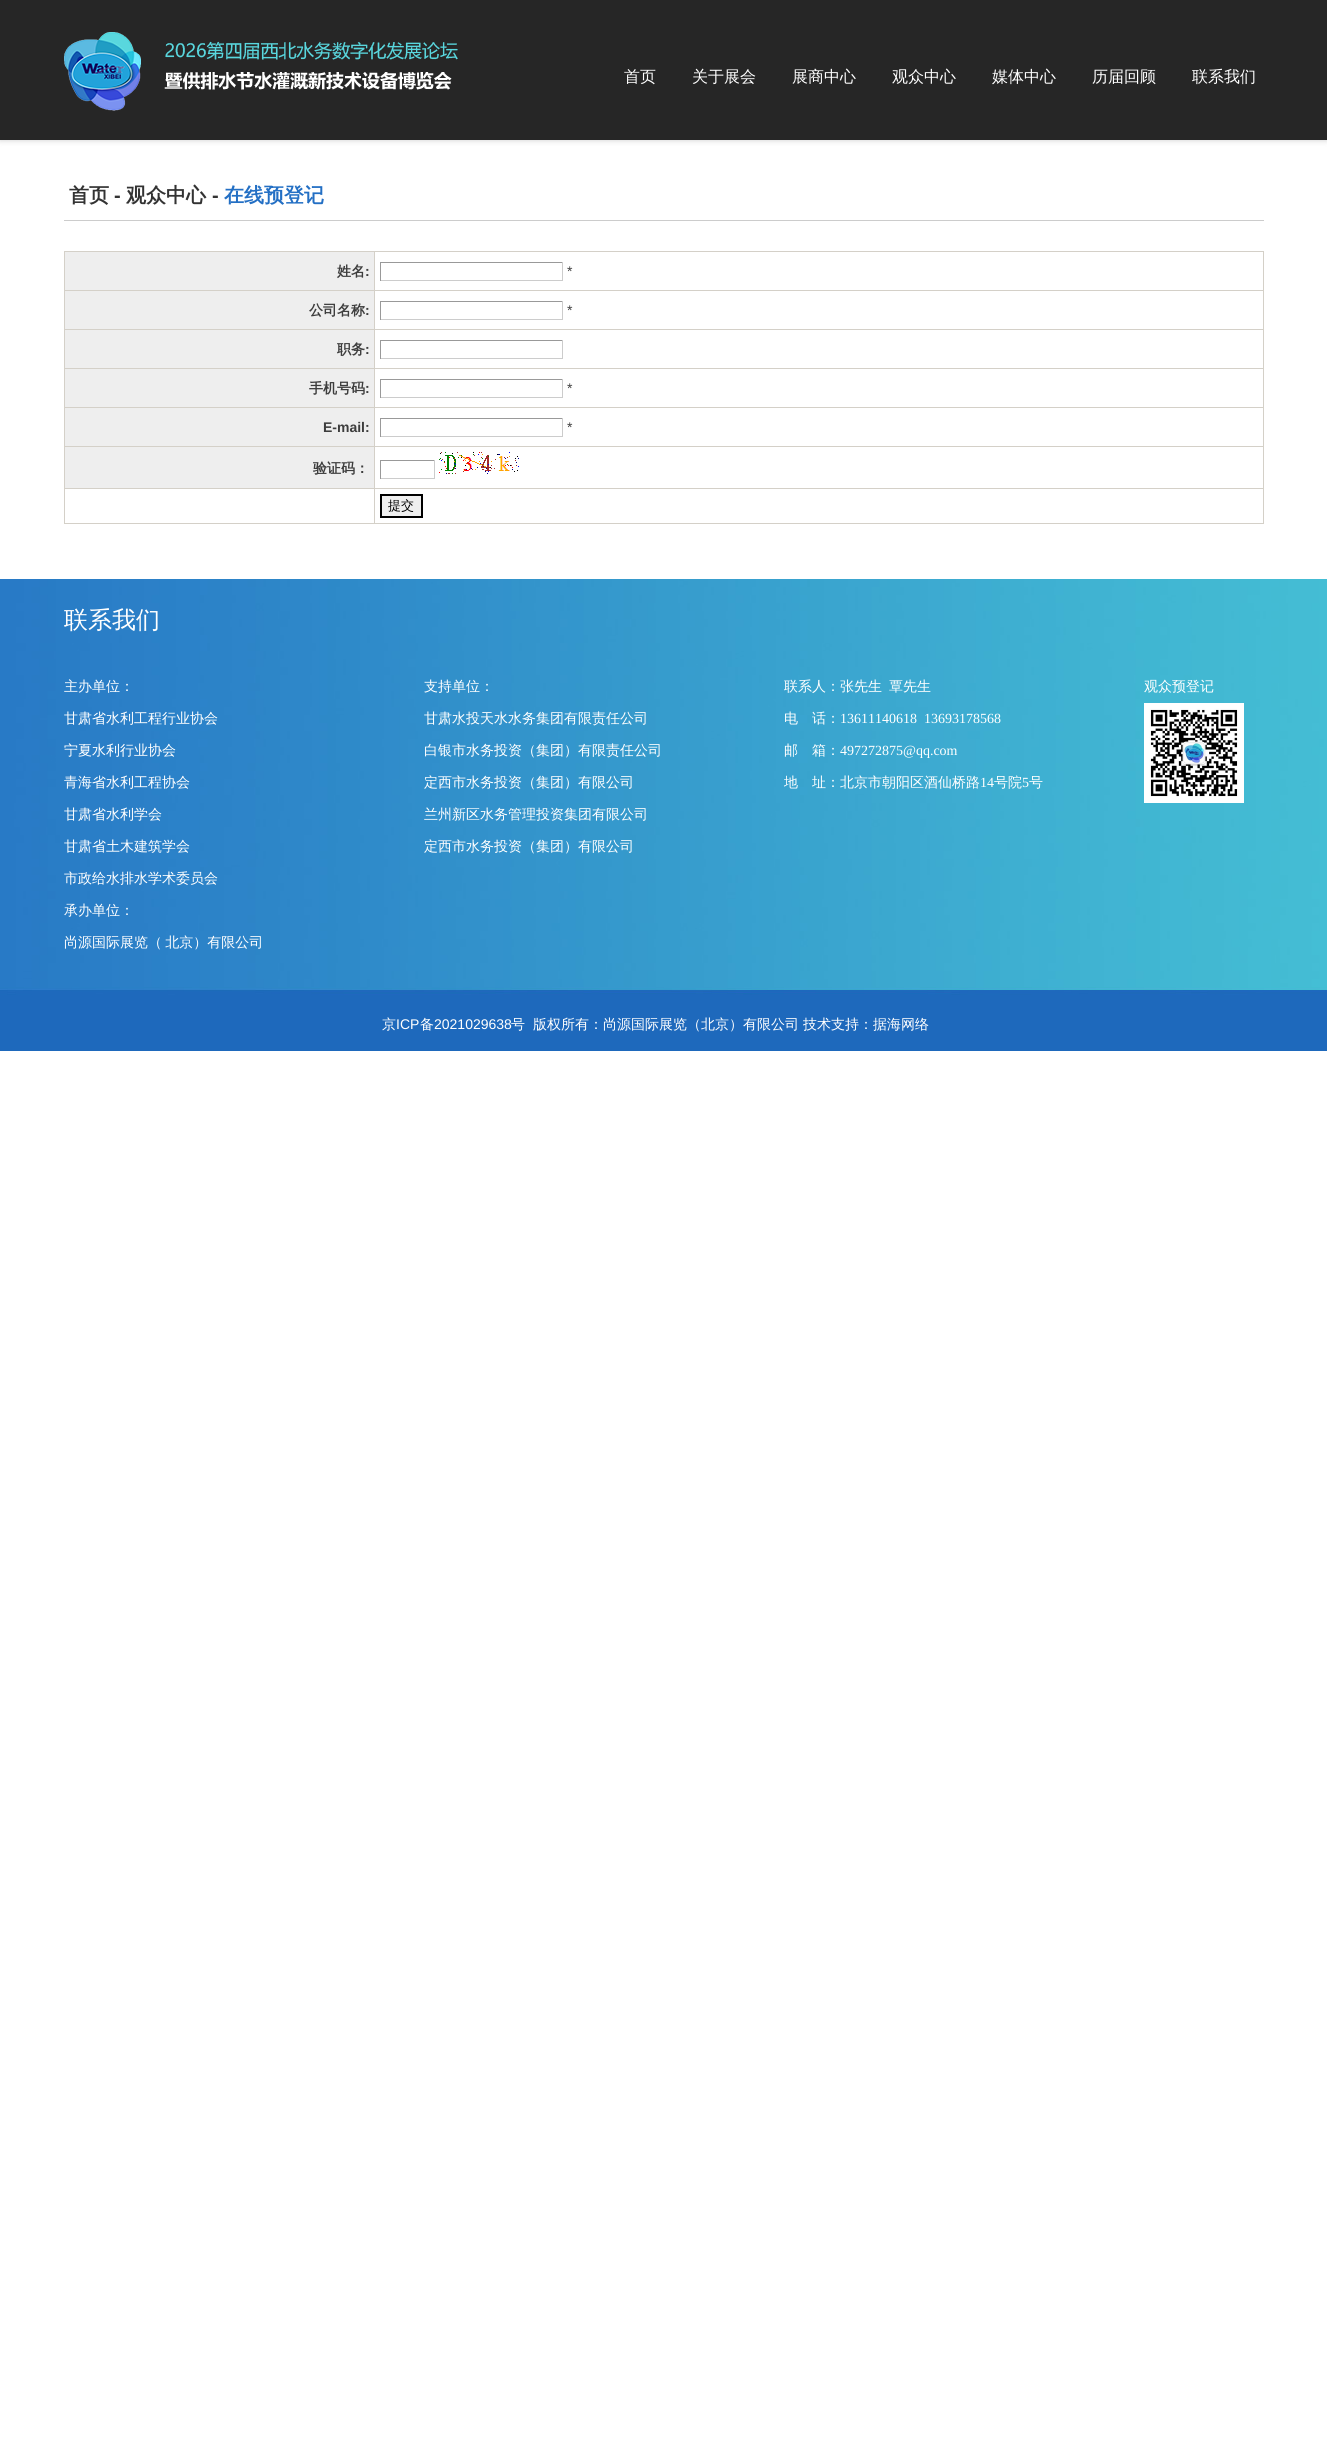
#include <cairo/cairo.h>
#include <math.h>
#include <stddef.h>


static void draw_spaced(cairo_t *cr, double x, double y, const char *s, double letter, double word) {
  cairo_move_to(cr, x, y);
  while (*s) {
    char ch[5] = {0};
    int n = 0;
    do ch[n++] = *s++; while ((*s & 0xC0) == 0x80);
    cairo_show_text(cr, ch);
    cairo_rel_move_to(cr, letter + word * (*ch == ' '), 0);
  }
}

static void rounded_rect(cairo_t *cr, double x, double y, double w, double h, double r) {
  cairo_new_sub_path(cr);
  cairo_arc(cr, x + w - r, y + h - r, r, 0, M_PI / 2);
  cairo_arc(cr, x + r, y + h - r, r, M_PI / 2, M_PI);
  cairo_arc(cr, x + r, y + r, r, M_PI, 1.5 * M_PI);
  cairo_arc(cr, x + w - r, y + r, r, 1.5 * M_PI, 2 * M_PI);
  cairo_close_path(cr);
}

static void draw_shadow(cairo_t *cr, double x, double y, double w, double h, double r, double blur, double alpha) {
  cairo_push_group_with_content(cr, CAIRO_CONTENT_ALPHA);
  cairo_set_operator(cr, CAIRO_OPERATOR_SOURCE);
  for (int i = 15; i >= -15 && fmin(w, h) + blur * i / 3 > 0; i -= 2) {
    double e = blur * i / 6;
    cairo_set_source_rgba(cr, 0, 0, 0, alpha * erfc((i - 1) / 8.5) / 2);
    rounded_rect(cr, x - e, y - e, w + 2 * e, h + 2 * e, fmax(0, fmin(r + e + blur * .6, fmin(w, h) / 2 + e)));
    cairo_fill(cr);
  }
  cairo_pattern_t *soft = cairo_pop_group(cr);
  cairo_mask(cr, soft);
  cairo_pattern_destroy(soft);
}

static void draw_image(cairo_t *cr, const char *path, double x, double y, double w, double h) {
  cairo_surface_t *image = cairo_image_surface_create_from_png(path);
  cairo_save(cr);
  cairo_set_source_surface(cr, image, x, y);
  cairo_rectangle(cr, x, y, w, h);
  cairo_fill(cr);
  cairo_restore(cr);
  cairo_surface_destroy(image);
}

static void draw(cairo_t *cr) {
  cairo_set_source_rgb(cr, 1, 1, 1);
  cairo_paint(cr);
  cairo_set_source_rgb(cr, 153 / 255.0, 153 / 255.0, 153 / 255.0);
  draw_shadow(cr, 0, 0, 1327, 140, 0, 3, 0.5);
  cairo_set_source_rgb(cr, 38 / 255.0, 38 / 255.0, 38 / 255.0);
  cairo_rectangle(cr, 0, 0, 1327, 140);
  cairo_fill(cr);
  draw_image(cr, "images/1.png", 64, 32, 394, 79);
  cairo_set_source_rgb(cr, 204 / 255.0, 204 / 255.0, 204 / 255.0);
  cairo_rectangle(cr, 64, 220, 1200, 1);
  cairo_fill(cr);
  cairo_set_source_rgb(cr, 212 / 255.0, 208 / 255.0, 200 / 255.0);
  cairo_rectangle(cr, 64, 251, 1200, 273);
  cairo_fill(cr);
  cairo_set_source_rgb(cr, 238 / 255.0, 238 / 255.0, 238 / 255.0);
  cairo_rectangle(cr, 65, 252, 309, 38);
  cairo_fill(cr);
  cairo_set_source_rgb(cr, 1, 1, 1);
  cairo_rectangle(cr, 375, 252, 888, 38);
  cairo_fill(cr);
  cairo_set_source_rgb(cr, 153 / 255.0, 153 / 255.0, 153 / 255.0);
  cairo_rectangle(cr, 380, 262, 183, 1);
  cairo_fill(cr);
  cairo_set_source_rgb(cr, 204 / 255.0, 204 / 255.0, 204 / 255.0);
  cairo_rectangle(cr, 562, 262, 1, 19);
  cairo_fill(cr);
  cairo_rectangle(cr, 380, 280, 183, 1);
  cairo_fill(cr);
  cairo_set_source_rgb(cr, 153 / 255.0, 153 / 255.0, 153 / 255.0);
  cairo_rectangle(cr, 380, 262, 1, 19);
  cairo_fill(cr);
  cairo_set_source_rgb(cr, 238 / 255.0, 238 / 255.0, 238 / 255.0);
  cairo_rectangle(cr, 65, 291, 309, 38);
  cairo_fill(cr);
  cairo_set_source_rgb(cr, 1, 1, 1);
  cairo_rectangle(cr, 375, 291, 888, 38);
  cairo_fill(cr);
  cairo_set_source_rgb(cr, 153 / 255.0, 153 / 255.0, 153 / 255.0);
  cairo_rectangle(cr, 380, 301, 183, 1);
  cairo_fill(cr);
  cairo_set_source_rgb(cr, 204 / 255.0, 204 / 255.0, 204 / 255.0);
  cairo_rectangle(cr, 562, 301, 1, 19);
  cairo_fill(cr);
  cairo_rectangle(cr, 380, 319, 183, 1);
  cairo_fill(cr);
  cairo_set_source_rgb(cr, 153 / 255.0, 153 / 255.0, 153 / 255.0);
  cairo_rectangle(cr, 380, 301, 1, 19);
  cairo_fill(cr);
  cairo_set_source_rgb(cr, 238 / 255.0, 238 / 255.0, 238 / 255.0);
  cairo_rectangle(cr, 65, 330, 309, 38);
  cairo_fill(cr);
  cairo_set_source_rgb(cr, 1, 1, 1);
  cairo_rectangle(cr, 375, 330, 888, 38);
  cairo_fill(cr);
  cairo_set_source_rgb(cr, 153 / 255.0, 153 / 255.0, 153 / 255.0);
  cairo_rectangle(cr, 380, 340, 183, 1);
  cairo_fill(cr);
  cairo_set_source_rgb(cr, 204 / 255.0, 204 / 255.0, 204 / 255.0);
  cairo_rectangle(cr, 562, 340, 1, 19);
  cairo_fill(cr);
  cairo_rectangle(cr, 380, 358, 183, 1);
  cairo_fill(cr);
  cairo_set_source_rgb(cr, 153 / 255.0, 153 / 255.0, 153 / 255.0);
  cairo_rectangle(cr, 380, 340, 1, 19);
  cairo_fill(cr);
  cairo_set_source_rgb(cr, 238 / 255.0, 238 / 255.0, 238 / 255.0);
  cairo_rectangle(cr, 65, 369, 309, 38);
  cairo_fill(cr);
  cairo_set_source_rgb(cr, 1, 1, 1);
  cairo_rectangle(cr, 375, 369, 888, 38);
  cairo_fill(cr);
  cairo_set_source_rgb(cr, 153 / 255.0, 153 / 255.0, 153 / 255.0);
  cairo_rectangle(cr, 380, 379, 183, 1);
  cairo_fill(cr);
  cairo_set_source_rgb(cr, 204 / 255.0, 204 / 255.0, 204 / 255.0);
  cairo_rectangle(cr, 562, 379, 1, 19);
  cairo_fill(cr);
  cairo_rectangle(cr, 380, 397, 183, 1);
  cairo_fill(cr);
  cairo_set_source_rgb(cr, 153 / 255.0, 153 / 255.0, 153 / 255.0);
  cairo_rectangle(cr, 380, 379, 1, 19);
  cairo_fill(cr);
  cairo_set_source_rgb(cr, 238 / 255.0, 238 / 255.0, 238 / 255.0);
  cairo_rectangle(cr, 65, 408, 309, 38);
  cairo_fill(cr);
  cairo_set_source_rgb(cr, 1, 1, 1);
  cairo_rectangle(cr, 375, 408, 888, 38);
  cairo_fill(cr);
  cairo_set_source_rgb(cr, 153 / 255.0, 153 / 255.0, 153 / 255.0);
  cairo_rectangle(cr, 380, 418, 183, 1);
  cairo_fill(cr);
  cairo_set_source_rgb(cr, 204 / 255.0, 204 / 255.0, 204 / 255.0);
  cairo_rectangle(cr, 562, 418, 1, 19);
  cairo_fill(cr);
  cairo_rectangle(cr, 380, 436, 183, 1);
  cairo_fill(cr);
  cairo_set_source_rgb(cr, 153 / 255.0, 153 / 255.0, 153 / 255.0);
  cairo_rectangle(cr, 380, 418, 1, 19);
  cairo_fill(cr);
  cairo_set_source_rgb(cr, 238 / 255.0, 238 / 255.0, 238 / 255.0);
  cairo_rectangle(cr, 65, 447, 309, 41);
  cairo_fill(cr);
  cairo_set_source_rgb(cr, 1, 1, 1);
  cairo_rectangle(cr, 375, 447, 888, 41);
  cairo_fill(cr);
  cairo_set_source_rgb(cr, 153 / 255.0, 153 / 255.0, 153 / 255.0);
  cairo_rectangle(cr, 380, 460, 55, 1);
  cairo_fill(cr);
  cairo_set_source_rgb(cr, 204 / 255.0, 204 / 255.0, 204 / 255.0);
  cairo_rectangle(cr, 434, 460, 1, 19);
  cairo_fill(cr);
  cairo_rectangle(cr, 380, 478, 55, 1);
  cairo_fill(cr);
  cairo_set_source_rgb(cr, 153 / 255.0, 153 / 255.0, 153 / 255.0);
  cairo_rectangle(cr, 380, 460, 1, 19);
  cairo_fill(cr);
  draw_image(cr, "images/2.png", 439, 452, 80, 22);
  cairo_set_source_rgb(cr, 1, 1, 1);
  cairo_rectangle(cr, 65, 489, 309, 34);
  cairo_fill(cr);
  cairo_rectangle(cr, 375, 489, 888, 34);
  cairo_fill(cr);
  cairo_set_source_rgb(cr, 239 / 255.0, 239 / 255.0, 239 / 255.0);
  cairo_rectangle(cr, 381, 495, 41, 22);
  cairo_fill_preserve(cr);
  cairo_set_source_rgb(cr, 0, 0, 0);
  cairo_stroke(cr);
  draw_image(cr, "images/3.png", 0, 579, 1327, 472);
  draw_image(cr, "images/4.png", 1144, 703, 100, 100);
  cairo_select_font_face(cr, "WenQuanYi Zen Hei Medium", CAIRO_FONT_SLANT_NORMAL, CAIRO_FONT_WEIGHT_NORMAL);
  cairo_set_font_size(cr, 16);
  cairo_set_source_rgb(cr, 1, 1, 1);
  cairo_move_to(cr, 624, 82);
  cairo_show_text(cr, "首页");
  cairo_move_to(cr, 692, 82);
  cairo_show_text(cr, "关于展会");
  cairo_move_to(cr, 792, 82);
  cairo_show_text(cr, "展商中心");
  cairo_move_to(cr, 892, 82);
  cairo_show_text(cr, "观众中心");
  cairo_move_to(cr, 992, 82);
  cairo_show_text(cr, "媒体中心");
  cairo_move_to(cr, 1092, 82);
  cairo_show_text(cr, "历届回顾");
  cairo_move_to(cr, 1192, 82);
  cairo_show_text(cr, "联系我们");
  cairo_select_font_face(cr, "WenQuanYi Zen Hei", CAIRO_FONT_SLANT_NORMAL, CAIRO_FONT_WEIGHT_BOLD);
  cairo_set_font_size(cr, 20);
  cairo_set_source_rgb(cr, 51 / 255.0, 51 / 255.0, 51 / 255.0);
  cairo_move_to(cr, 69, 202);
  cairo_show_text(cr, "首页");
  cairo_select_font_face(cr, "Liberation Sans", CAIRO_FONT_SLANT_NORMAL, CAIRO_FONT_WEIGHT_BOLD);
  cairo_move_to(cr, 114, 202);
  cairo_show_text(cr, "-");
  cairo_select_font_face(cr, "WenQuanYi Zen Hei", CAIRO_FONT_SLANT_NORMAL, CAIRO_FONT_WEIGHT_BOLD);
  cairo_move_to(cr, 126, 202);
  cairo_show_text(cr, "观众中心");
  cairo_select_font_face(cr, "Liberation Sans", CAIRO_FONT_SLANT_NORMAL, CAIRO_FONT_WEIGHT_BOLD);
  cairo_move_to(cr, 212, 202);
  cairo_show_text(cr, "-");
  cairo_select_font_face(cr, "WenQuanYi Zen Hei", CAIRO_FONT_SLANT_NORMAL, CAIRO_FONT_WEIGHT_BOLD);
  cairo_set_source_rgb(cr, 35 / 255.0, 111 / 255.0, 196 / 255.0);
  cairo_move_to(cr, 224, 202);
  cairo_show_text(cr, "在线预登记");
  cairo_set_font_size(cr, 14);
  cairo_set_source_rgb(cr, 61 / 255.0, 61 / 255.0, 61 / 255.0);
  cairo_move_to(cr, 337, 276);
  cairo_show_text(cr, "姓名");
  cairo_select_font_face(cr, "Liberation Sans", CAIRO_FONT_SLANT_NORMAL, CAIRO_FONT_WEIGHT_BOLD);
  cairo_move_to(cr, 365, 276);
  cairo_show_text(cr, ":");
  cairo_select_font_face(cr, "Liberation Sans", CAIRO_FONT_SLANT_NORMAL, CAIRO_FONT_WEIGHT_NORMAL);
  cairo_move_to(cr, 567, 276);
  cairo_show_text(cr, "*");
  cairo_select_font_face(cr, "WenQuanYi Zen Hei", CAIRO_FONT_SLANT_NORMAL, CAIRO_FONT_WEIGHT_BOLD);
  cairo_move_to(cr, 309, 315);
  cairo_show_text(cr, "公司名称");
  cairo_select_font_face(cr, "Liberation Sans", CAIRO_FONT_SLANT_NORMAL, CAIRO_FONT_WEIGHT_BOLD);
  cairo_move_to(cr, 365, 315);
  cairo_show_text(cr, ":");
  cairo_select_font_face(cr, "Liberation Sans", CAIRO_FONT_SLANT_NORMAL, CAIRO_FONT_WEIGHT_NORMAL);
  cairo_move_to(cr, 567, 315);
  cairo_show_text(cr, "*");
  cairo_select_font_face(cr, "WenQuanYi Zen Hei", CAIRO_FONT_SLANT_NORMAL, CAIRO_FONT_WEIGHT_BOLD);
  cairo_move_to(cr, 337, 354);
  cairo_show_text(cr, "职务");
  cairo_select_font_face(cr, "Liberation Sans", CAIRO_FONT_SLANT_NORMAL, CAIRO_FONT_WEIGHT_BOLD);
  cairo_move_to(cr, 365, 354);
  cairo_show_text(cr, ":");
  cairo_select_font_face(cr, "WenQuanYi Zen Hei", CAIRO_FONT_SLANT_NORMAL, CAIRO_FONT_WEIGHT_BOLD);
  cairo_move_to(cr, 309, 393);
  cairo_show_text(cr, "手机号码");
  cairo_select_font_face(cr, "Liberation Sans", CAIRO_FONT_SLANT_NORMAL, CAIRO_FONT_WEIGHT_BOLD);
  cairo_move_to(cr, 365, 393);
  cairo_show_text(cr, ":");
  cairo_select_font_face(cr, "Liberation Sans", CAIRO_FONT_SLANT_NORMAL, CAIRO_FONT_WEIGHT_NORMAL);
  cairo_move_to(cr, 567, 393);
  cairo_show_text(cr, "*");
  cairo_select_font_face(cr, "Liberation Sans", CAIRO_FONT_SLANT_NORMAL, CAIRO_FONT_WEIGHT_BOLD);
  cairo_move_to(cr, 323, 432);
  cairo_show_text(cr, "E-mail:");
  cairo_select_font_face(cr, "Liberation Sans", CAIRO_FONT_SLANT_NORMAL, CAIRO_FONT_WEIGHT_NORMAL);
  cairo_move_to(cr, 567, 432);
  cairo_show_text(cr, "*");
  cairo_select_font_face(cr, "WenQuanYi Zen Hei", CAIRO_FONT_SLANT_NORMAL, CAIRO_FONT_WEIGHT_BOLD);
  cairo_move_to(cr, 313, 473);
  cairo_show_text(cr, "验证码：");
  cairo_select_font_face(cr, "WenQuanYi Zen Hei Medium", CAIRO_FONT_SLANT_NORMAL, CAIRO_FONT_WEIGHT_NORMAL);
  cairo_set_font_size(cr, 13);
  cairo_set_source_rgb(cr, 0, 0, 0);
  cairo_move_to(cr, 388, 510);
  cairo_show_text(cr, "提交");
  cairo_set_font_size(cr, 24);
  cairo_set_source_rgb(cr, 1, 1, 1);
  cairo_move_to(cr, 64, 628);
  cairo_show_text(cr, "联系我们");
  cairo_set_font_size(cr, 14);
  cairo_move_to(cr, 64, 691);
  cairo_show_text(cr, "主办单位：");
  cairo_move_to(cr, 64, 723);
  cairo_show_text(cr, "甘肃省水利工程行业协会");
  cairo_move_to(cr, 64, 755);
  cairo_show_text(cr, "宁夏水利行业协会");
  cairo_move_to(cr, 64, 787);
  cairo_show_text(cr, "青海省水利工程协会");
  cairo_move_to(cr, 64, 819);
  cairo_show_text(cr, "甘肃省水利学会");
  cairo_move_to(cr, 64, 851);
  cairo_show_text(cr, "甘肃省土木建筑学会");
  cairo_move_to(cr, 64, 883);
  cairo_show_text(cr, "市政给水排水学术委员会");
  cairo_move_to(cr, 64, 915);
  cairo_show_text(cr, "承办单位：");
  draw_spaced(cr, 64, 947, "尚源国际展览（ 北京）有限公司", 0, -1);
  cairo_move_to(cr, 424, 691);
  cairo_show_text(cr, "支持单位：");
  cairo_move_to(cr, 424, 723);
  cairo_show_text(cr, "甘肃水投天水水务集团有限责任公司");
  cairo_move_to(cr, 424, 755);
  cairo_show_text(cr, "白银市水务投资（集团）有限责任公司");
  cairo_move_to(cr, 424, 787);
  cairo_show_text(cr, "定西市水务投资（集团）有限公司");
  cairo_move_to(cr, 424, 819);
  cairo_show_text(cr, "兰州新区水务管理投资集团有限公司");
  cairo_move_to(cr, 424, 851);
  cairo_show_text(cr, "定西市水务投资（集团）有限公司");
  cairo_move_to(cr, 784, 691);
  cairo_show_text(cr, "联系人：张先生");
  cairo_move_to(cr, 889, 691);
  cairo_show_text(cr, "覃先生");
  cairo_move_to(cr, 784, 723);
  cairo_show_text(cr, "电");
  cairo_move_to(cr, 812, 723);
  cairo_show_text(cr, "话：");
  cairo_select_font_face(cr, "Liberation Serif", CAIRO_FONT_SLANT_NORMAL, CAIRO_FONT_WEIGHT_NORMAL);
  cairo_move_to(cr, 840, 723);
  cairo_show_text(cr, "13611140618  13693178568");
  cairo_select_font_face(cr, "WenQuanYi Zen Hei Medium", CAIRO_FONT_SLANT_NORMAL, CAIRO_FONT_WEIGHT_NORMAL);
  cairo_move_to(cr, 784, 755);
  cairo_show_text(cr, "邮");
  cairo_move_to(cr, 812, 755);
  cairo_show_text(cr, "箱：");
  cairo_select_font_face(cr, "Liberation Serif", CAIRO_FONT_SLANT_NORMAL, CAIRO_FONT_WEIGHT_NORMAL);
  cairo_move_to(cr, 840, 755);
  cairo_show_text(cr, "497272875@qq.com");
  cairo_select_font_face(cr, "WenQuanYi Zen Hei Medium", CAIRO_FONT_SLANT_NORMAL, CAIRO_FONT_WEIGHT_NORMAL);
  cairo_move_to(cr, 784, 787);
  cairo_show_text(cr, "地");
  cairo_move_to(cr, 812, 787);
  cairo_show_text(cr, "址：北京市朝阳区酒仙桥路");
  cairo_select_font_face(cr, "Liberation Serif", CAIRO_FONT_SLANT_NORMAL, CAIRO_FONT_WEIGHT_NORMAL);
  cairo_move_to(cr, 980, 787);
  cairo_show_text(cr, "14");
  cairo_select_font_face(cr, "WenQuanYi Zen Hei Medium", CAIRO_FONT_SLANT_NORMAL, CAIRO_FONT_WEIGHT_NORMAL);
  cairo_move_to(cr, 994, 787);
  cairo_show_text(cr, "号院");
  cairo_select_font_face(cr, "Liberation Serif", CAIRO_FONT_SLANT_NORMAL, CAIRO_FONT_WEIGHT_NORMAL);
  cairo_move_to(cr, 1022, 787);
  cairo_show_text(cr, "5");
  cairo_select_font_face(cr, "WenQuanYi Zen Hei Medium", CAIRO_FONT_SLANT_NORMAL, CAIRO_FONT_WEIGHT_NORMAL);
  cairo_move_to(cr, 1029, 787);
  cairo_show_text(cr, "号");
  cairo_move_to(cr, 1144, 691);
  cairo_show_text(cr, "观众预登记");
  cairo_move_to(cr, 382, 1029);
  cairo_show_text(cr, "京");
  cairo_select_font_face(cr, "Liberation Sans", CAIRO_FONT_SLANT_NORMAL, CAIRO_FONT_WEIGHT_NORMAL);
  cairo_move_to(cr, 396, 1029);
  cairo_show_text(cr, "ICP");
  cairo_select_font_face(cr, "WenQuanYi Zen Hei Medium", CAIRO_FONT_SLANT_NORMAL, CAIRO_FONT_WEIGHT_NORMAL);
  cairo_move_to(cr, 420, 1029);
  cairo_show_text(cr, "备");
  cairo_select_font_face(cr, "Liberation Sans", CAIRO_FONT_SLANT_NORMAL, CAIRO_FONT_WEIGHT_NORMAL);
  cairo_move_to(cr, 434, 1029);
  cairo_show_text(cr, "2021029638");
  cairo_select_font_face(cr, "WenQuanYi Zen Hei Medium", CAIRO_FONT_SLANT_NORMAL, CAIRO_FONT_WEIGHT_NORMAL);
  cairo_move_to(cr, 511, 1029);
  cairo_show_text(cr, "号");
  cairo_move_to(cr, 533, 1029);
  cairo_show_text(cr, "版权所有：尚源国际展览（北京）有限公司");
  cairo_move_to(cr, 803, 1029);
  cairo_show_text(cr, "技术支持：据海网络");
}

int main(void) {
  cairo_surface_t *surface = cairo_image_surface_create(CAIRO_FORMAT_RGB24, 1327, 2445);
  cairo_t *cr = cairo_create(surface);
  cairo_font_options_t *options = cairo_font_options_create();
  cairo_font_options_set_hint_metrics(options, CAIRO_HINT_METRICS_OFF);
  cairo_font_options_set_hint_style(options, CAIRO_HINT_STYLE_NONE);
  cairo_set_font_options(cr, options);
  cairo_set_miter_limit(cr, 4);
  draw(cr);
  cairo_surface_write_to_png(surface, "out.png");
  cairo_font_options_destroy(options);
  cairo_destroy(cr);
  cairo_surface_destroy(surface);
  return 0;
}
